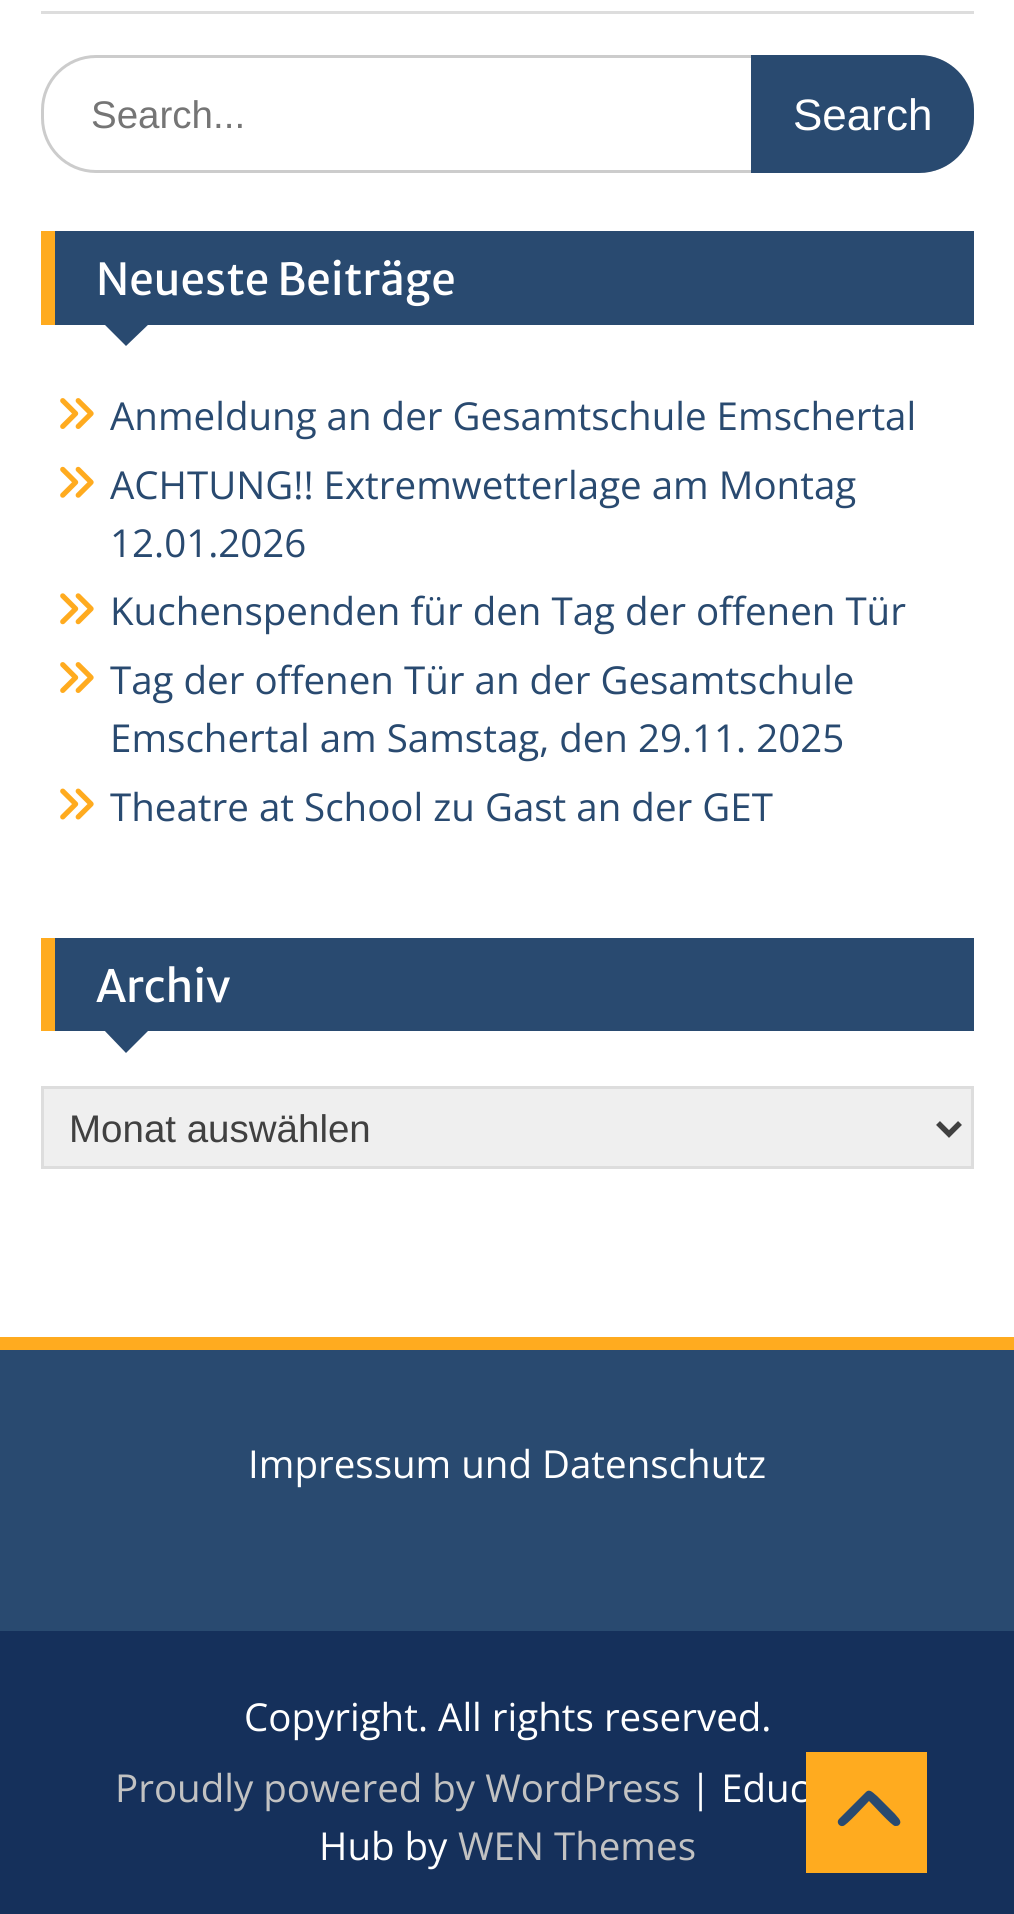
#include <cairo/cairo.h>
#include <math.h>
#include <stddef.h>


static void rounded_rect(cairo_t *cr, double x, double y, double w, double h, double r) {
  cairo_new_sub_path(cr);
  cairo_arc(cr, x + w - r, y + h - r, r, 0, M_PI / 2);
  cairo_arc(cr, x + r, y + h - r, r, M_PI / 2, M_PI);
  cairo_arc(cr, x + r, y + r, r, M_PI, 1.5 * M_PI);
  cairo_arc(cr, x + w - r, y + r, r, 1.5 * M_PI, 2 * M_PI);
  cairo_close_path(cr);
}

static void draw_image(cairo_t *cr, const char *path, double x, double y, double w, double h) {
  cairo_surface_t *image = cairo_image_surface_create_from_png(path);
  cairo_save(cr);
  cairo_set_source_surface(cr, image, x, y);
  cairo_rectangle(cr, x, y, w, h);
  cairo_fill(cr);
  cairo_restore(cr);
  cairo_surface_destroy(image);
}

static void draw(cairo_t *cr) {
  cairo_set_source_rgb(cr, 1, 1, 1);
  cairo_paint(cr);
  cairo_set_source_rgb(cr, 221 / 255.0, 221 / 255.0, 221 / 255.0);
  cairo_rectangle(cr, 41, 11, 933, 3);
  cairo_fill(cr);
  rounded_rect(cr, 42.5, 56.5, 930, 115, 53.5);
  cairo_set_source_rgb(cr, 204 / 255.0, 204 / 255.0, 204 / 255.0);
  cairo_set_line_width(cr, 3);
  cairo_stroke(cr);
  cairo_set_source_rgb(cr, 41 / 255.0, 74 / 255.0, 112 / 255.0);
  cairo_new_path(cr);
  cairo_move_to(cr, 751, 55);
  cairo_line_to(cr, 919, 55);
  cairo_curve_to(cr, 949.5, 55, 974, 79.5, 974, 110);
  cairo_line_to(cr, 974, 118);
  cairo_curve_to(cr, 974, 148.5, 949.5, 173, 919, 173);
  cairo_line_to(cr, 751, 173);
  cairo_close_path(cr);
  cairo_fill(cr);
  cairo_rectangle(cr, 55, 231, 919, 94);
  cairo_fill(cr);
  cairo_set_source_rgb(cr, 1, 171 / 255.0, 31 / 255.0);
  cairo_rectangle(cr, 41, 231, 14, 94);
  cairo_fill(cr);
  cairo_set_source_rgb(cr, 41 / 255.0, 74 / 255.0, 112 / 255.0);
  cairo_new_path(cr);
  cairo_move_to(cr, 102, 322);
  cairo_line_to(cr, 151, 322);
  cairo_line_to(cr, 126, 346);
  cairo_close_path(cr);
  cairo_fill(cr);
  draw_image(cr, "images/1.png", 60, 398, 34, 31);
  draw_image(cr, "images/2.png", 60, 466, 34, 32);
  draw_image(cr, "images/3.png", 60, 593, 34, 32);
  draw_image(cr, "images/1.png", 60, 662, 34, 31);
  draw_image(cr, "images/4.png", 60, 788, 34, 32);
  cairo_rectangle(cr, 55, 938, 919, 93);
  cairo_fill(cr);
  cairo_set_source_rgb(cr, 1, 171 / 255.0, 31 / 255.0);
  cairo_rectangle(cr, 41, 938, 14, 93);
  cairo_fill(cr);
  cairo_set_source_rgb(cr, 41 / 255.0, 74 / 255.0, 112 / 255.0);
  cairo_new_path(cr);
  cairo_move_to(cr, 102, 1028);
  cairo_line_to(cr, 151, 1028);
  cairo_line_to(cr, 126, 1053);
  cairo_close_path(cr);
  cairo_fill(cr);
  cairo_set_source_rgb(cr, 239 / 255.0, 239 / 255.0, 239 / 255.0);
  cairo_rectangle(cr, 42.5, 1087.5, 930, 80);
  cairo_fill_preserve(cr);
  cairo_set_source_rgb(cr, 221 / 255.0, 221 / 255.0, 221 / 255.0);
  cairo_stroke(cr);
  cairo_new_path(cr);
  cairo_move_to(cr, 938, 1123);
  cairo_line_to(cr, 949, 1134);
  cairo_line_to(cr, 960, 1123);
  cairo_set_source_rgb(cr, 64 / 255.0, 64 / 255.0, 64 / 255.0);
  cairo_set_line_width(cr, 5.5);
  cairo_stroke(cr);
  cairo_set_source_rgb(cr, 41 / 255.0, 74 / 255.0, 112 / 255.0);
  cairo_rectangle(cr, 0, 1350, 1014, 281);
  cairo_fill(cr);
  cairo_set_source_rgb(cr, 1, 171 / 255.0, 31 / 255.0);
  cairo_rectangle(cr, 0, 1337, 1014, 13);
  cairo_fill(cr);
  cairo_set_source_rgb(cr, 21 / 255.0, 48 / 255.0, 91 / 255.0);
  cairo_rectangle(cr, 0, 1631, 1014, 283);
  cairo_fill(cr);
  cairo_select_font_face(cr, "Liberation Sans", CAIRO_FONT_SLANT_NORMAL, CAIRO_FONT_WEIGHT_NORMAL);
  cairo_set_font_size(cr, 38.5);
  cairo_set_source_rgb(cr, 117 / 255.0, 117 / 255.0, 117 / 255.0);
  cairo_move_to(cr, 91, 128);
  cairo_show_text(cr, "Search...");
  cairo_set_font_size(cr, 44);
  cairo_set_source_rgb(cr, 1, 1, 1);
  cairo_move_to(cr, 793, 130);
  cairo_show_text(cr, "Search");
  cairo_select_font_face(cr, "Merriweather Sans", CAIRO_FONT_SLANT_NORMAL, CAIRO_FONT_WEIGHT_NORMAL);
  cairo_move_to(cr, 96, 295);
  cairo_show_text(cr, "Neueste Beiträge");
  cairo_select_font_face(cr, "Open Sans", CAIRO_FONT_SLANT_NORMAL, CAIRO_FONT_WEIGHT_NORMAL);
  cairo_set_font_size(cr, 38.5);
  cairo_set_source_rgb(cr, 41 / 255.0, 74 / 255.0, 112 / 255.0);
  cairo_move_to(cr, 110, 430);
  cairo_show_text(cr, "Anmeldung an der Gesamtschule Emschertal");
  cairo_move_to(cr, 110, 499);
  cairo_show_text(cr, "ACHTUNG!! Extremwetterlage am Montag");
  cairo_move_to(cr, 110, 557);
  cairo_show_text(cr, "12.01.2026");
  cairo_move_to(cr, 110, 625);
  cairo_show_text(cr, "Kuchenspenden für den Tag der offenen Tür");
  cairo_move_to(cr, 110, 694);
  cairo_show_text(cr, "Tag der offenen Tür an der Gesamtschule");
  cairo_move_to(cr, 110, 752);
  cairo_show_text(cr, "Emschertal am Samstag, den 29.11. 2025");
  cairo_move_to(cr, 110, 821);
  cairo_show_text(cr, "Theatre at School zu Gast an der GET");
  cairo_select_font_face(cr, "Merriweather Sans", CAIRO_FONT_SLANT_NORMAL, CAIRO_FONT_WEIGHT_NORMAL);
  cairo_set_font_size(cr, 44);
  cairo_set_source_rgb(cr, 1, 1, 1);
  cairo_move_to(cr, 96, 1002);
  cairo_show_text(cr, "Archiv");
  cairo_select_font_face(cr, "Liberation Sans", CAIRO_FONT_SLANT_NORMAL, CAIRO_FONT_WEIGHT_NORMAL);
  cairo_set_font_size(cr, 38.5);
  cairo_set_source_rgb(cr, 64 / 255.0, 64 / 255.0, 64 / 255.0);
  cairo_move_to(cr, 69, 1142);
  cairo_show_text(cr, "Monat auswählen");
  cairo_select_font_face(cr, "Open Sans", CAIRO_FONT_SLANT_NORMAL, CAIRO_FONT_WEIGHT_NORMAL);
  cairo_set_source_rgb(cr, 1, 1, 1);
  cairo_move_to(cr, 248, 1478);
  cairo_show_text(cr, "Impressum und Datenschutz");
  cairo_move_to(cr, 244, 1731);
  cairo_show_text(cr, "Copyright. All rights reserved.");
  cairo_set_source_rgb(cr, 194 / 255.0, 194 / 255.0, 194 / 255.0);
  cairo_move_to(cr, 115, 1802);
  cairo_show_text(cr, "Proudly powered by WordPress");
  cairo_set_source_rgb(cr, 1, 1, 1);
  cairo_move_to(cr, 690, 1802);
  cairo_show_text(cr, "| Educ");
  cairo_move_to(cr, 319, 1860);
  cairo_show_text(cr, "Hub by");
  cairo_set_source_rgb(cr, 194 / 255.0, 194 / 255.0, 194 / 255.0);
  cairo_move_to(cr, 458, 1860);
  cairo_show_text(cr, "WEN Themes");
  cairo_set_source_rgb(cr, 1, 171 / 255.0, 31 / 255.0);
  cairo_rectangle(cr, 806, 1752, 121, 121);
  cairo_fill(cr);
  cairo_set_source_rgb(cr, 41 / 255.0, 74 / 255.0, 112 / 255.0);
  cairo_new_path(cr);
  cairo_move_to(cr, 866, 1792);
  cairo_curve_to(cr, 870, 1788, 874, 1794, 877, 1796);
  cairo_line_to(cr, 895, 1814);
  cairo_curve_to(cr, 897, 1817, 903, 1821, 899, 1825);
  cairo_curve_to(cr, 898, 1826, 897, 1826, 895, 1826);
  cairo_curve_to(cr, 892, 1826, 873, 1805, 869, 1801);
  cairo_curve_to(cr, 865, 1805, 846, 1826, 843, 1826);
  cairo_curve_to(cr, 839, 1827, 836, 1822, 839, 1819);
  cairo_close_path(cr);
  cairo_fill(cr);
}

int main(void) {
  cairo_surface_t *surface = cairo_image_surface_create(CAIRO_FORMAT_RGB24, 1014, 1914);
  cairo_t *cr = cairo_create(surface);
  cairo_font_options_t *options = cairo_font_options_create();
  cairo_font_options_set_hint_metrics(options, CAIRO_HINT_METRICS_OFF);
  cairo_font_options_set_hint_style(options, CAIRO_HINT_STYLE_NONE);
  cairo_set_font_options(cr, options);
  cairo_set_miter_limit(cr, 4);
  draw(cr);
  cairo_surface_write_to_png(surface, "out.png");
  cairo_font_options_destroy(options);
  cairo_destroy(cr);
  cairo_surface_destroy(surface);
  return 0;
}
